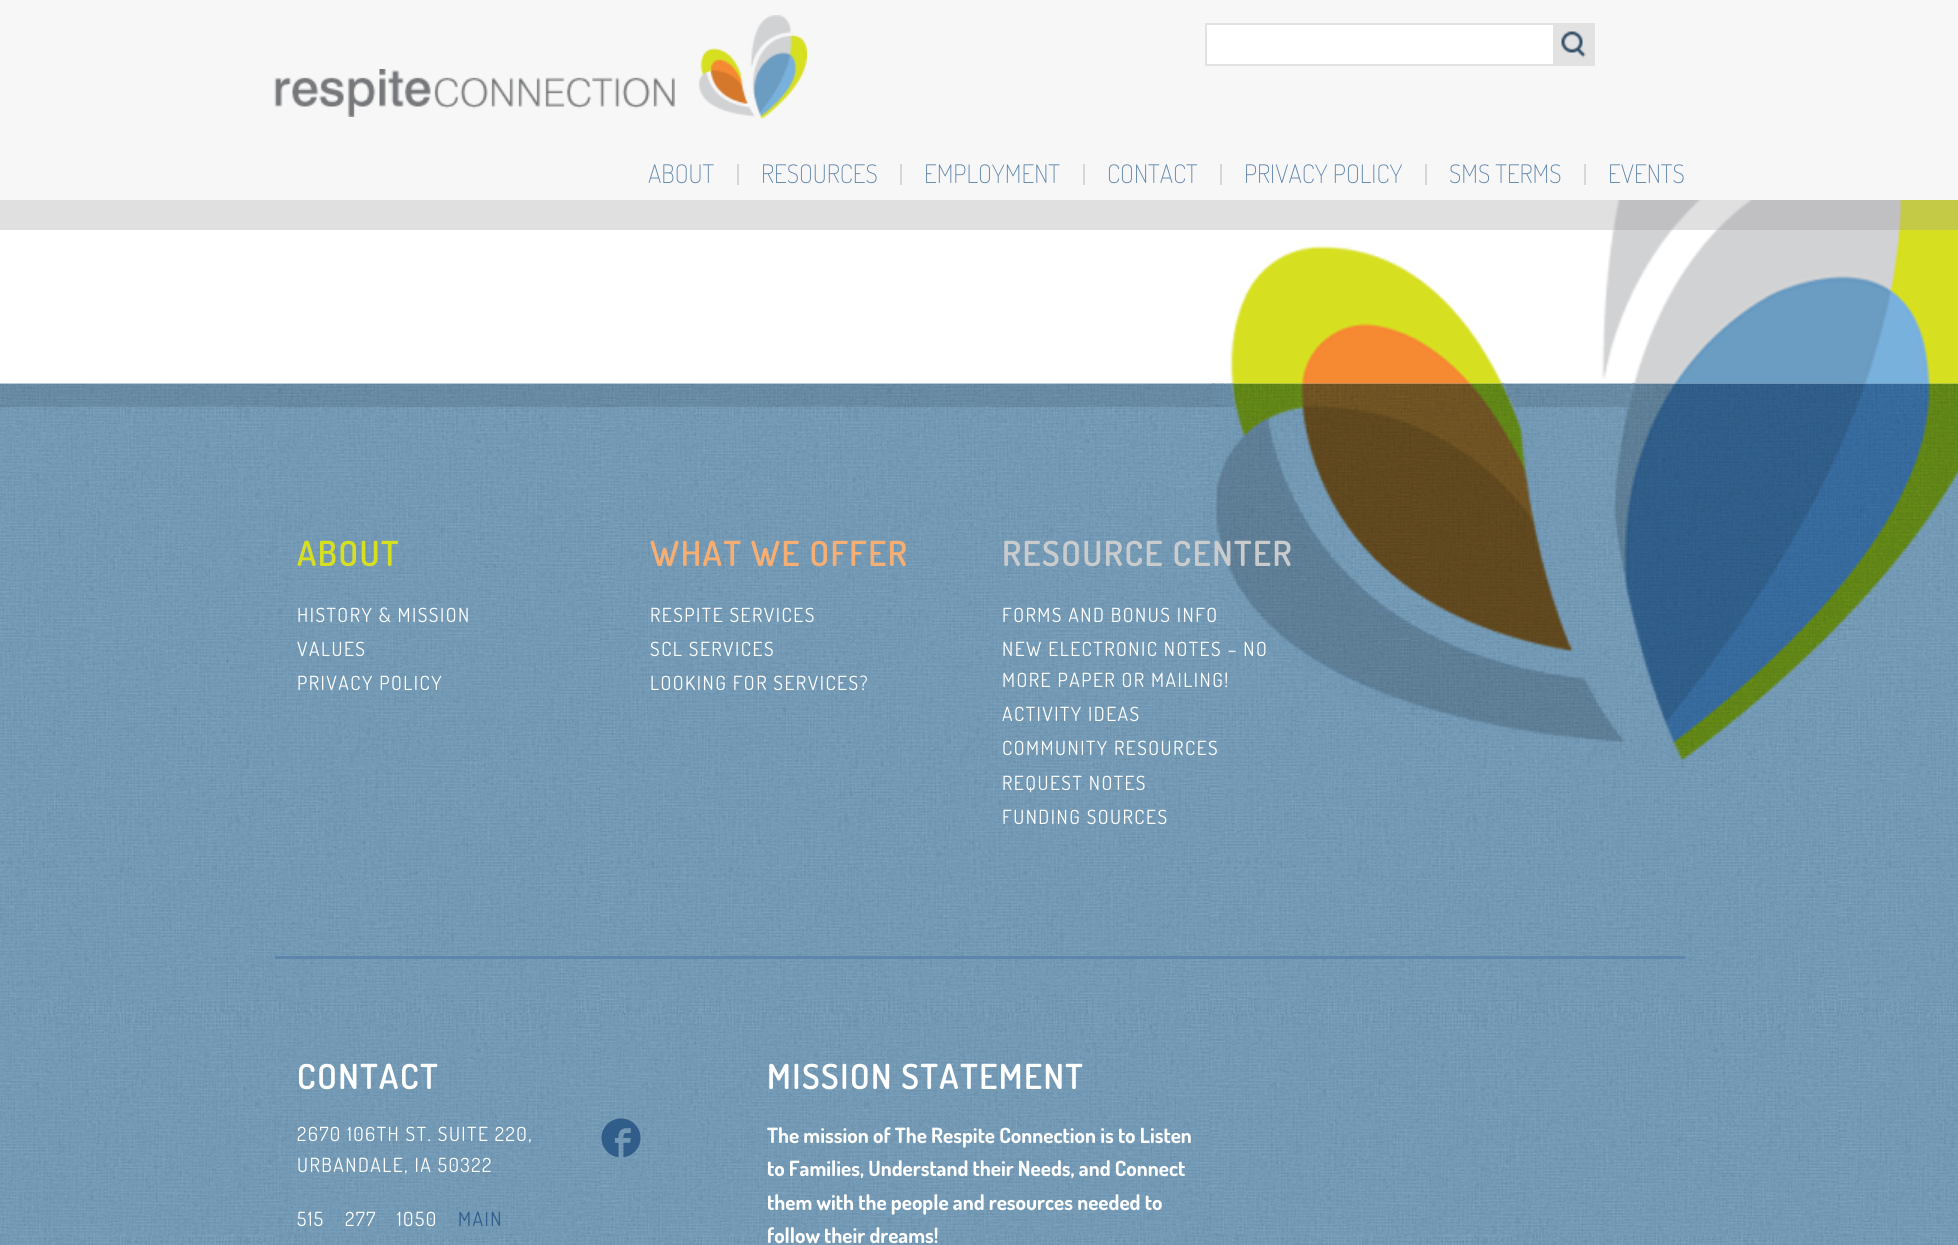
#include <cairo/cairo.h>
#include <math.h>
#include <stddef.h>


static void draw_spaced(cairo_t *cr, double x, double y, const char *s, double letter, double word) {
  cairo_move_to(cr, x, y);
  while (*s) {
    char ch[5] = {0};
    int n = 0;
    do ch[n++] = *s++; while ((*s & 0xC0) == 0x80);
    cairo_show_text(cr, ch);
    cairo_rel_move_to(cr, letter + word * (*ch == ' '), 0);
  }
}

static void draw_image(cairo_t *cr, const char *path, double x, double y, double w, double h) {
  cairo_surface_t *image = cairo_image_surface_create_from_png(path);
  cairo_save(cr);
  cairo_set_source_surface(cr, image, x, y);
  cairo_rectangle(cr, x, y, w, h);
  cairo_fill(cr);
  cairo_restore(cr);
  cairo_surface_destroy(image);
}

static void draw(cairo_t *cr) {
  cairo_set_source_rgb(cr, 1, 1, 1);
  cairo_paint(cr);
  cairo_set_source_rgb(cr, 247 / 255.0, 247 / 255.0, 247 / 255.0);
  cairo_rectangle(cr, 0, 0, 1958, 200);
  cairo_fill(cr);
  draw_image(cr, "images/1.png", 698, 15, 109, 104);
  draw_image(cr, "images/2.png", 274, 69, 401, 48);
  cairo_set_source_rgb(cr, 1, 1, 1);
  cairo_rectangle(cr, 1207, 25, 346, 39);
  cairo_fill(cr);
  cairo_rectangle(cr, 1206, 24, 388, 41);
  cairo_set_source_rgb(cr, 226 / 255.0, 226 / 255.0, 226 / 255.0);
  cairo_stroke(cr);
  cairo_rectangle(cr, 1553, 25, 40, 39);
  cairo_fill(cr);
  draw_image(cr, "images/3.png", 1561, 31, 25, 27);
  cairo_set_source_rgb(cr, 214 / 255.0, 215 / 255.0, 217 / 255.0);
  cairo_rectangle(cr, 737, 164, 2, 21);
  cairo_fill(cr);
  cairo_rectangle(cr, 900, 164, 2, 21);
  cairo_fill(cr);
  cairo_rectangle(cr, 1083, 164, 2, 21);
  cairo_fill(cr);
  cairo_rectangle(cr, 1220, 164, 2, 21);
  cairo_fill(cr);
  cairo_rectangle(cr, 1425, 164, 2, 21);
  cairo_fill(cr);
  cairo_rectangle(cr, 1584, 164, 2, 21);
  cairo_fill(cr);
  draw_image(cr, "images/5.png", 0, 383, 1958, 862);
  cairo_set_source_rgba(cr, 0, 0, 0, 0.1);
  cairo_rectangle(cr, 0, 384, 1634, 23);
  cairo_fill(cr);
  draw_image(cr, "images/7.png", 1203, 383, 755, 385);
  draw_image(cr, "images/4.png", 1229, 200, 729, 184);
  cairo_set_source_rgba(cr, 152 / 255.0, 152 / 255.0, 153 / 255.0, 0.3);
  cairo_rectangle(cr, 0, 200, 1958, 30);
  cairo_fill(cr);
  cairo_set_source_rgb(cr, 94 / 255.0, 133 / 255.0, 172 / 255.0);
  cairo_rectangle(cr, 275, 956, 1410, 3);
  cairo_fill(cr);
  draw_image(cr, "images/6.png", 601, 1118, 40, 40);
  cairo_select_font_face(cr, "Dosis ExtraLight", CAIRO_FONT_SLANT_NORMAL, CAIRO_FONT_WEIGHT_NORMAL);
  cairo_set_font_size(cr, 25.5);
  cairo_move_to(cr, 648, 183);
  cairo_show_text(cr, "ABOUT");
  cairo_move_to(cr, 761, 183);
  cairo_show_text(cr, "RESOURCES");
  cairo_move_to(cr, 924, 183);
  cairo_show_text(cr, "EMPLOYMENT");
  cairo_move_to(cr, 1107, 183);
  cairo_show_text(cr, "CONTACT");
  cairo_move_to(cr, 1244, 183);
  cairo_show_text(cr, "PRIVACY POLICY");
  cairo_move_to(cr, 1449, 183);
  cairo_show_text(cr, "SMS TERMS");
  cairo_move_to(cr, 1608, 183);
  cairo_show_text(cr, "EVENTS");
  cairo_select_font_face(cr, "Dosis SemiBold", CAIRO_FONT_SLANT_NORMAL, CAIRO_FONT_WEIGHT_NORMAL);
  cairo_set_font_size(cr, 34.5);
  cairo_set_source_rgb(cr, 215 / 255.0, 223 / 255.0, 33 / 255.0);
  draw_spaced(cr, 297, 566, "ABOUT", 1.5, 0);
  cairo_select_font_face(cr, "Dosis", CAIRO_FONT_SLANT_NORMAL, CAIRO_FONT_WEIGHT_NORMAL);
  cairo_set_font_size(cr, 19.5);
  cairo_set_source_rgb(cr, 1, 1, 1);
  draw_spaced(cr, 297, 622, "HISTORY & MISSION", 1.5, 0);
  draw_spaced(cr, 297, 656, "VALUES", 1.5, 0);
  draw_spaced(cr, 297, 690, "PRIVACY POLICY", 1.5, 0);
  cairo_select_font_face(cr, "Dosis SemiBold", CAIRO_FONT_SLANT_NORMAL, CAIRO_FONT_WEIGHT_NORMAL);
  cairo_set_font_size(cr, 34.5);
  cairo_set_source_rgb(cr, 246 / 255.0, 174 / 255.0, 115 / 255.0);
  draw_spaced(cr, 650, 566, "WHAT WE OFFER", 1.5, 0);
  cairo_select_font_face(cr, "Dosis", CAIRO_FONT_SLANT_NORMAL, CAIRO_FONT_WEIGHT_NORMAL);
  cairo_set_font_size(cr, 19.5);
  cairo_set_source_rgb(cr, 1, 1, 1);
  draw_spaced(cr, 650, 622, "RESPITE SERVICES", 1.5, 0);
  draw_spaced(cr, 650, 656, "SCL SERVICES", 1.5, 0);
  draw_spaced(cr, 650, 690, "LOOKING FOR SERVICES?", 1.5, 0);
  cairo_select_font_face(cr, "Dosis SemiBold", CAIRO_FONT_SLANT_NORMAL, CAIRO_FONT_WEIGHT_NORMAL);
  cairo_set_font_size(cr, 34.5);
  cairo_set_source_rgb(cr, 202 / 255.0, 203 / 255.0, 205 / 255.0);
  draw_spaced(cr, 1002, 566, "RESOURCE CENTER", 1.5, 0);
  cairo_select_font_face(cr, "Dosis", CAIRO_FONT_SLANT_NORMAL, CAIRO_FONT_WEIGHT_NORMAL);
  cairo_set_font_size(cr, 19.5);
  cairo_set_source_rgb(cr, 1, 1, 1);
  draw_spaced(cr, 1002, 622, "FORMS AND BONUS INFO", 1.5, 0);
  draw_spaced(cr, 1002, 656, "NEW ELECTRONIC NOTES – NO", 1.5, 0);
  draw_spaced(cr, 1002, 687, "MORE PAPER OR MAILING!", 1.5, 0);
  draw_spaced(cr, 1002, 721, "ACTIVITY IDEAS", 1.5, 0);
  draw_spaced(cr, 1002, 755, "COMMUNITY RESOURCES", 1.5, 0);
  draw_spaced(cr, 1002, 790, "REQUEST NOTES", 1.5, 0);
  draw_spaced(cr, 1002, 824, "FUNDING SOURCES", 1.5, 0);
  cairo_select_font_face(cr, "Dosis SemiBold", CAIRO_FONT_SLANT_NORMAL, CAIRO_FONT_WEIGHT_NORMAL);
  cairo_set_font_size(cr, 34.5);
  draw_spaced(cr, 297, 1089, "CONTACT", 1.5, 0);
  cairo_select_font_face(cr, "Dosis", CAIRO_FONT_SLANT_NORMAL, CAIRO_FONT_WEIGHT_NORMAL);
  cairo_set_font_size(cr, 19.5);
  draw_spaced(cr, 297, 1141, "2670 106TH ST. SUITE 220,", 1.5, 0);
  draw_spaced(cr, 297, 1172, "URBANDALE, IA 50322", 1.5, 0);
  draw_spaced(cr, 297, 1226, "515", 1.5, 0);
  draw_spaced(cr, 345, 1226, "277", 1.5, 0);
  draw_spaced(cr, 397, 1226, "1050", 1.5, 0);
  cairo_set_source_rgb(cr, 48 / 255.0, 93 / 255.0, 137 / 255.0);
  draw_spaced(cr, 458, 1226, "MAIN", 1.5, 0);
  cairo_select_font_face(cr, "Dosis SemiBold", CAIRO_FONT_SLANT_NORMAL, CAIRO_FONT_WEIGHT_NORMAL);
  cairo_set_font_size(cr, 34.5);
  cairo_set_source_rgb(cr, 1, 1, 1);
  draw_spaced(cr, 767, 1089, "MISSION STATEMENT", 1.5, 0);
  cairo_select_font_face(cr, "Dosis", CAIRO_FONT_SLANT_NORMAL, CAIRO_FONT_WEIGHT_BOLD);
  cairo_set_font_size(cr, 21);
  cairo_move_to(cr, 767, 1143);
  cairo_show_text(cr, "The mission of The Respite Connection is to Listen");
  cairo_move_to(cr, 767, 1176);
  cairo_show_text(cr, "to Families, Understand their Needs, and Connect");
  cairo_move_to(cr, 767, 1210);
  cairo_show_text(cr, "them with the people and resources needed to");
  cairo_move_to(cr, 767, 1243);
  cairo_show_text(cr, "follow their dreams!");
}

int main(void) {
  cairo_surface_t *surface = cairo_image_surface_create(CAIRO_FORMAT_RGB24, 1958, 1245);
  cairo_t *cr = cairo_create(surface);
  cairo_font_options_t *options = cairo_font_options_create();
  cairo_font_options_set_hint_metrics(options, CAIRO_HINT_METRICS_OFF);
  cairo_font_options_set_hint_style(options, CAIRO_HINT_STYLE_NONE);
  cairo_set_font_options(cr, options);
  cairo_set_miter_limit(cr, 4);
  draw(cr);
  cairo_surface_write_to_png(surface, "out.png");
  cairo_font_options_destroy(options);
  cairo_destroy(cr);
  cairo_surface_destroy(surface);
  return 0;
}
